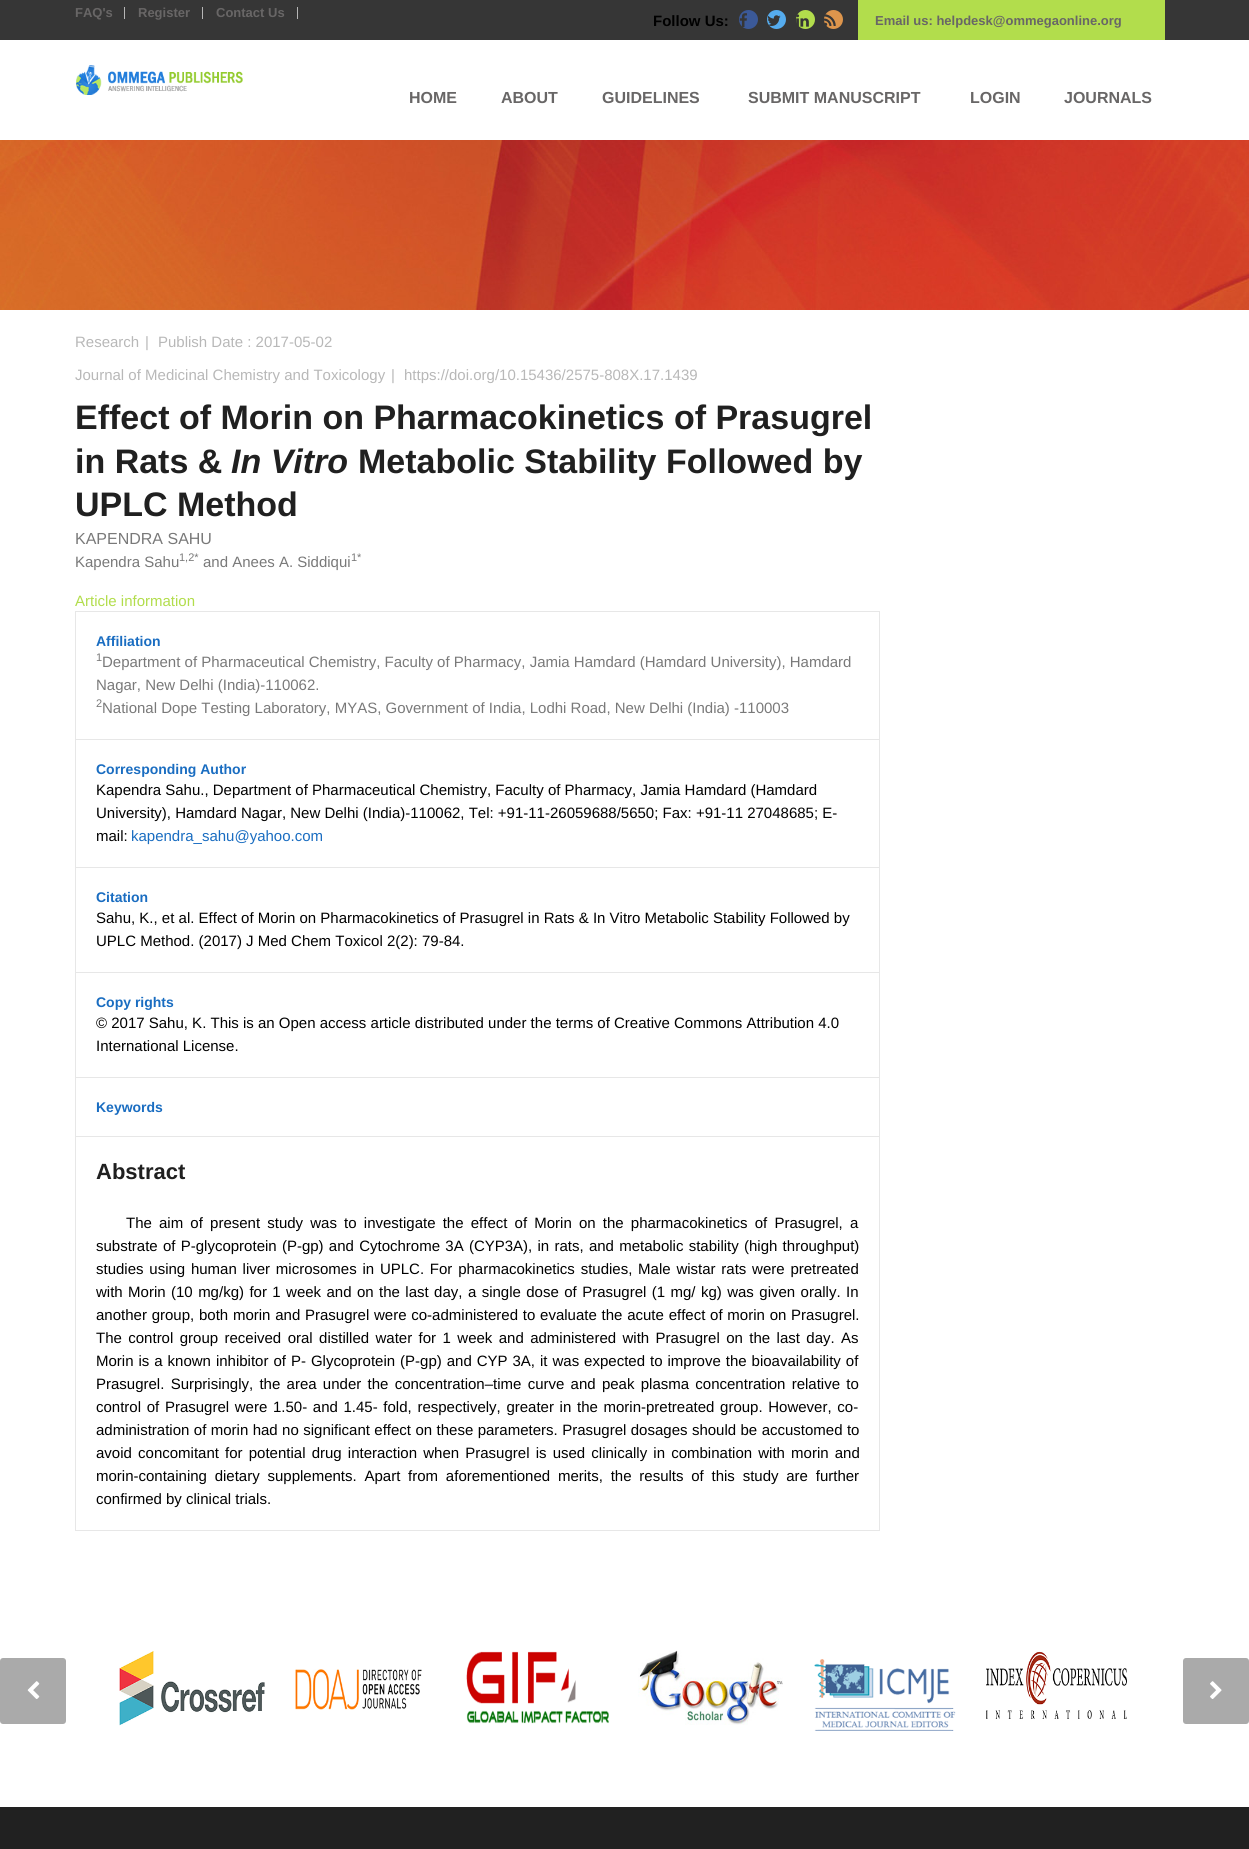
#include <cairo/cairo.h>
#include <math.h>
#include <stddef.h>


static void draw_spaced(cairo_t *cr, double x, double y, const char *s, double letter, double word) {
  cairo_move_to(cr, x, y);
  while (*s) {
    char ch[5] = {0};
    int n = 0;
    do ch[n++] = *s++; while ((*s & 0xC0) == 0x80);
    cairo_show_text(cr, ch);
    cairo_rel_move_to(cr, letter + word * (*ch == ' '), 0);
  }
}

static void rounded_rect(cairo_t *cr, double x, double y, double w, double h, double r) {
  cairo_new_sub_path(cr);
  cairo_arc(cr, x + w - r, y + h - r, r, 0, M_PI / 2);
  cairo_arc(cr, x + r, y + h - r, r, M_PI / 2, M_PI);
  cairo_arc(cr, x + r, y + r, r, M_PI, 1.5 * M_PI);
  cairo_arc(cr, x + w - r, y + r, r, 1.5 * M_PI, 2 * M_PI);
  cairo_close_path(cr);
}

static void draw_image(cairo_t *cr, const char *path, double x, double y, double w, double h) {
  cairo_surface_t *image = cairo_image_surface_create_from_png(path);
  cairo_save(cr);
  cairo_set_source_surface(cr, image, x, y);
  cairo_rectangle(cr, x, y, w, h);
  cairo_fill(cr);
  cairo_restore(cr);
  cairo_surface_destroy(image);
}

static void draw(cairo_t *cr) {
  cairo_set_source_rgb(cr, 1, 1, 1);
  cairo_paint(cr);
  cairo_set_source_rgb(cr, 54 / 255.0, 54 / 255.0, 54 / 255.0);
  cairo_rectangle(cr, 0, 0, 1249, 40);
  cairo_fill(cr);
  cairo_set_source_rgb(cr, 182 / 255.0, 182 / 255.0, 182 / 255.0);
  cairo_rectangle(cr, 124, 7, 1, 12);
  cairo_fill(cr);
  cairo_rectangle(cr, 202, 7, 1, 12);
  cairo_fill(cr);
  cairo_rectangle(cr, 297, 7, 1, 12);
  cairo_fill(cr);
  cairo_set_source_rgb(cr, 59 / 255.0, 89 / 255.0, 152 / 255.0);
  cairo_arc(cr, 748.5, 19.5, 9.5, 0, 2 * M_PI);
  cairo_fill(cr);
  draw_image(cr, "images/1.png", 739, 13, 8, 14);
  cairo_set_source_rgb(cr, 85 / 255.0, 172 / 255.0, 238 / 255.0);
  cairo_arc(cr, 776.5, 19.5, 9.5, 0, 2 * M_PI);
  cairo_fill(cr);
  draw_image(cr, "images/2.png", 767, 15, 14, 11);
  cairo_set_source_rgb(cr, 178 / 255.0, 221 / 255.0, 76 / 255.0);
  cairo_arc(cr, 805.5, 19.5, 9.5, 0, 2 * M_PI);
  cairo_fill(cr);
  draw_image(cr, "images/3.png", 796, 14, 13, 13);
  cairo_set_source_rgb(cr, 221 / 255.0, 149 / 255.0, 76 / 255.0);
  cairo_arc(cr, 833.5, 19.5, 9.5, 0, 2 * M_PI);
  cairo_fill(cr);
  draw_image(cr, "images/4.png", 824, 14, 12, 12);
  cairo_set_source_rgb(cr, 178 / 255.0, 221 / 255.0, 76 / 255.0);
  cairo_rectangle(cr, 858, 0, 307, 40);
  cairo_fill(cr);
  draw_image(cr, "images/5.png", 76, 65, 167, 30);
  draw_image(cr, "images/6.png", 0, 140, 1249, 170);
  cairo_rectangle(cr, 75.5, 611.5, 804, 128);
  cairo_set_source_rgb(cr, 231 / 255.0, 231 / 255.0, 231 / 255.0);
  cairo_set_line_width(cr, 1);
  cairo_stroke(cr);
  cairo_rectangle(cr, 75.5, 739.5, 804, 128);
  cairo_stroke(cr);
  cairo_rectangle(cr, 75.5, 867.5, 804, 105);
  cairo_stroke(cr);
  cairo_rectangle(cr, 75.5, 972.5, 804, 105);
  cairo_stroke(cr);
  cairo_rectangle(cr, 75.5, 1077.5, 804, 59);
  cairo_stroke(cr);
  cairo_rectangle(cr, 75.5, 1136.5, 804, 394);
  cairo_stroke(cr);
  draw_image(cr, "images/7.png", 119, 1651, 146, 75);
  draw_image(cr, "images/8.png", 295, 1669, 127, 41);
  draw_image(cr, "images/9.png", 466, 1651, 143, 73);
  draw_image(cr, "images/10.png", 638, 1650, 145, 75);
  draw_image(cr, "images/11.png", 814, 1659, 142, 72);
  draw_image(cr, "images/12.png", 986, 1651, 141, 68);
  cairo_set_source_rgb(cr, 170 / 255.0, 170 / 255.0, 170 / 255.0);
  rounded_rect(cr, 0, 1658, 66, 66, 3);
  cairo_fill(cr);
  draw_image(cr, "images/13.png", 27, 1681, 13, 18);
  rounded_rect(cr, 1183, 1658, 66, 66, 3);
  cairo_fill(cr);
  draw_image(cr, "images/14.png", 1210, 1681, 12, 18);
  cairo_set_source_rgb(cr, 33 / 255.0, 33 / 255.0, 33 / 255.0);
  cairo_rectangle(cr, 0, 1807, 1249, 42);
  cairo_fill(cr);
  cairo_select_font_face(cr, "Liberation Sans", CAIRO_FONT_SLANT_NORMAL, CAIRO_FONT_WEIGHT_BOLD);
  cairo_set_font_size(cr, 13);
  cairo_set_source_rgb(cr, 104 / 255.0, 102 / 255.0, 102 / 255.0);
  cairo_move_to(cr, 75, 17);
  cairo_show_text(cr, "FAQ's");
  cairo_move_to(cr, 138, 17);
  cairo_show_text(cr, "Register");
  cairo_move_to(cr, 216, 17);
  cairo_show_text(cr, "Contact Us");
  cairo_set_font_size(cr, 15);
  cairo_set_source_rgb(cr, 0, 0, 0);
  cairo_move_to(cr, 653, 26);
  cairo_show_text(cr, "Follow Us:");
  cairo_set_font_size(cr, 13);
  cairo_set_source_rgb(cr, 104 / 255.0, 102 / 255.0, 102 / 255.0);
  cairo_move_to(cr, 875, 25);
  cairo_show_text(cr, "Email us: helpdesk@ommegaonline.org");
  cairo_set_font_size(cr, 16);
  cairo_move_to(cr, 409, 103);
  cairo_show_text(cr, "HOME");
  cairo_move_to(cr, 501, 103);
  cairo_show_text(cr, "ABOUT");
  cairo_move_to(cr, 602, 103);
  cairo_show_text(cr, "GUIDELINES");
  cairo_move_to(cr, 748, 103);
  cairo_show_text(cr, "SUBMIT MANUSCRIPT");
  cairo_move_to(cr, 970, 103);
  cairo_show_text(cr, "LOGIN");
  cairo_move_to(cr, 1064, 103);
  cairo_show_text(cr, "JOURNALS");
  cairo_select_font_face(cr, "Liberation Sans", CAIRO_FONT_SLANT_NORMAL, CAIRO_FONT_WEIGHT_NORMAL);
  cairo_set_font_size(cr, 15);
  cairo_set_source_rgb(cr, 184 / 255.0, 184 / 255.0, 184 / 255.0);
  cairo_move_to(cr, 75, 347);
  cairo_show_text(cr, "Research");
  cairo_move_to(cr, 145, 347);
  cairo_show_text(cr, "|");
  cairo_move_to(cr, 158, 347);
  cairo_show_text(cr, "Publish Date : 2017-05-02");
  cairo_move_to(cr, 75, 380);
  cairo_show_text(cr, "Journal of Medicinal Chemistry and Toxicology");
  cairo_move_to(cr, 391, 380);
  cairo_show_text(cr, "|");
  cairo_move_to(cr, 404, 380);
  cairo_show_text(cr, "https://doi.org/10.15436/2575-808X.17.1439");
  cairo_select_font_face(cr, "Liberation Sans", CAIRO_FONT_SLANT_NORMAL, CAIRO_FONT_WEIGHT_BOLD);
  cairo_set_font_size(cr, 34);
  cairo_set_source_rgb(cr, 32 / 255.0, 32 / 255.0, 32 / 255.0);
  cairo_move_to(cr, 75, 429);
  cairo_show_text(cr, "Effect of Morin on Pharmacokinetics of Prasugrel");
  cairo_move_to(cr, 75, 473);
  cairo_show_text(cr, "in Rats &");
  cairo_select_font_face(cr, "Liberation Sans", CAIRO_FONT_SLANT_ITALIC, CAIRO_FONT_WEIGHT_BOLD);
  cairo_move_to(cr, 231, 473);
  cairo_show_text(cr, "In Vitro");
  cairo_select_font_face(cr, "Liberation Sans", CAIRO_FONT_SLANT_NORMAL, CAIRO_FONT_WEIGHT_BOLD);
  cairo_move_to(cr, 358, 473);
  cairo_show_text(cr, "Metabolic Stability Followed by");
  cairo_move_to(cr, 75, 516);
  cairo_show_text(cr, "UPLC Method");
  cairo_select_font_face(cr, "Liberation Sans", CAIRO_FONT_SLANT_NORMAL, CAIRO_FONT_WEIGHT_NORMAL);
  cairo_set_font_size(cr, 16);
  cairo_set_source_rgb(cr, 121 / 255.0, 121 / 255.0, 121 / 255.0);
  cairo_move_to(cr, 75, 544);
  cairo_show_text(cr, "KAPENDRA SAHU");
  cairo_set_font_size(cr, 15);
  cairo_move_to(cr, 75, 567);
  cairo_show_text(cr, "Kapendra Sahu");
  cairo_set_font_size(cr, 11);
  cairo_move_to(cr, 179, 561);
  cairo_show_text(cr, "1,2*");
  cairo_set_font_size(cr, 15);
  cairo_move_to(cr, 203, 567);
  cairo_show_text(cr, "and Anees A. Siddiqui");
  cairo_set_font_size(cr, 11);
  cairo_move_to(cr, 351, 561);
  cairo_show_text(cr, "1*");
  cairo_set_font_size(cr, 15);
  cairo_set_source_rgb(cr, 178 / 255.0, 221 / 255.0, 76 / 255.0);
  cairo_move_to(cr, 75, 606);
  cairo_show_text(cr, "Article information");
  cairo_select_font_face(cr, "Liberation Sans", CAIRO_FONT_SLANT_NORMAL, CAIRO_FONT_WEIGHT_BOLD);
  cairo_set_font_size(cr, 14);
  cairo_set_source_rgb(cr, 26 / 255.0, 109 / 255.0, 193 / 255.0);
  cairo_move_to(cr, 96, 646);
  cairo_show_text(cr, "Affiliation");
  cairo_select_font_face(cr, "Liberation Sans", CAIRO_FONT_SLANT_NORMAL, CAIRO_FONT_WEIGHT_NORMAL);
  cairo_set_font_size(cr, 11);
  cairo_set_source_rgb(cr, 121 / 255.0, 121 / 255.0, 121 / 255.0);
  cairo_move_to(cr, 96, 661);
  cairo_show_text(cr, "1");
  cairo_set_font_size(cr, 15);
  cairo_move_to(cr, 102, 667);
  cairo_show_text(cr, "Department of Pharmaceutical Chemistry, Faculty of Pharmacy, Jamia Hamdard (Hamdard University), Hamdard");
  cairo_move_to(cr, 96, 690);
  cairo_show_text(cr, "Nagar, New Delhi (India)-110062.");
  cairo_set_font_size(cr, 11);
  cairo_move_to(cr, 96, 707);
  cairo_show_text(cr, "2");
  cairo_set_font_size(cr, 15);
  cairo_move_to(cr, 102, 713);
  cairo_show_text(cr, "National Dope Testing Laboratory, MYAS, Government of India, Lodhi Road, New Delhi (India) -110003");
  cairo_select_font_face(cr, "Liberation Sans", CAIRO_FONT_SLANT_NORMAL, CAIRO_FONT_WEIGHT_BOLD);
  cairo_set_font_size(cr, 14);
  cairo_set_source_rgb(cr, 26 / 255.0, 109 / 255.0, 193 / 255.0);
  cairo_move_to(cr, 96, 774);
  cairo_show_text(cr, "Corresponding Author");
  cairo_select_font_face(cr, "Liberation Sans", CAIRO_FONT_SLANT_NORMAL, CAIRO_FONT_WEIGHT_NORMAL);
  cairo_set_font_size(cr, 15);
  cairo_set_source_rgb(cr, 0, 0, 0);
  cairo_move_to(cr, 96, 795);
  cairo_show_text(cr, "Kapendra Sahu., Department of Pharmaceutical Chemistry, Faculty of Pharmacy, Jamia Hamdard (Hamdard");
  cairo_move_to(cr, 96, 818);
  cairo_show_text(cr, "University), Hamdard Nagar, New Delhi (India)-110062, Tel: +91-11-26059688/5650; Fax: +91-11 27048685; E-");
  cairo_move_to(cr, 96, 841);
  cairo_show_text(cr, "mail:");
  cairo_set_source_rgb(cr, 26 / 255.0, 109 / 255.0, 193 / 255.0);
  cairo_move_to(cr, 131, 841);
  cairo_show_text(cr, "kapendra_sahu@yahoo.com");
  cairo_select_font_face(cr, "Liberation Sans", CAIRO_FONT_SLANT_NORMAL, CAIRO_FONT_WEIGHT_BOLD);
  cairo_set_font_size(cr, 14);
  cairo_move_to(cr, 96, 902);
  cairo_show_text(cr, "Citation");
  cairo_select_font_face(cr, "Liberation Sans", CAIRO_FONT_SLANT_NORMAL, CAIRO_FONT_WEIGHT_NORMAL);
  cairo_set_font_size(cr, 15);
  cairo_set_source_rgb(cr, 0, 0, 0);
  cairo_move_to(cr, 96, 923);
  cairo_show_text(cr, "Sahu, K., et al. Effect of Morin on Pharmacokinetics of Prasugrel in Rats & In Vitro Metabolic Stability Followed by");
  cairo_move_to(cr, 96, 946);
  cairo_show_text(cr, "UPLC Method. (2017) J Med Chem Toxicol 2(2): 79-84.");
  cairo_select_font_face(cr, "Liberation Sans", CAIRO_FONT_SLANT_NORMAL, CAIRO_FONT_WEIGHT_BOLD);
  cairo_set_font_size(cr, 14);
  cairo_set_source_rgb(cr, 26 / 255.0, 109 / 255.0, 193 / 255.0);
  cairo_move_to(cr, 96, 1007);
  cairo_show_text(cr, "Copy rights");
  cairo_select_font_face(cr, "Liberation Sans", CAIRO_FONT_SLANT_NORMAL, CAIRO_FONT_WEIGHT_NORMAL);
  cairo_set_font_size(cr, 15);
  cairo_set_source_rgb(cr, 0, 0, 0);
  cairo_move_to(cr, 96, 1028);
  cairo_show_text(cr, "© 2017 Sahu, K. This is an Open access article distributed under the terms of Creative Commons Attribution 4.0");
  cairo_move_to(cr, 96, 1051);
  cairo_show_text(cr, "International License.");
  cairo_select_font_face(cr, "Liberation Sans", CAIRO_FONT_SLANT_NORMAL, CAIRO_FONT_WEIGHT_BOLD);
  cairo_set_font_size(cr, 14);
  cairo_set_source_rgb(cr, 26 / 255.0, 109 / 255.0, 193 / 255.0);
  cairo_move_to(cr, 96, 1112);
  cairo_show_text(cr, "Keywords");
  cairo_set_font_size(cr, 22);
  cairo_set_source_rgb(cr, 32 / 255.0, 32 / 255.0, 32 / 255.0);
  cairo_move_to(cr, 96, 1179);
  cairo_show_text(cr, "Abstract");
  cairo_select_font_face(cr, "Liberation Sans", CAIRO_FONT_SLANT_NORMAL, CAIRO_FONT_WEIGHT_NORMAL);
  cairo_set_font_size(cr, 15);
  cairo_set_source_rgb(cr, 0, 0, 0);
  draw_spaced(cr, 126, 1228, "The aim of present study was to investigate the effect of Morin on the pharmacokinetics of Prasugrel, a", 0, 3);
  draw_spaced(cr, 96, 1251, "substrate of P-glycoprotein (P-gp) and Cytochrome 3A (CYP3A), in rats, and metabolic stability (high throughput)", 0, 1.1);
  draw_spaced(cr, 96, 1274, "studies using human liver microsomes in UPLC. For pharmacokinetics studies, Male wistar rats were pretreated", 0, 1.6);
  draw_spaced(cr, 96, 1297, "with Morin (10 mg/kg) for 1 week and on the last day, a single dose of Prasugrel (1 mg/ kg) was given orally. In", 0, 1.25);
  draw_spaced(cr, 96, 1320, "another group, both morin and Prasugrel were co-administered to evaluate the acute effect of morin on Prasugrel.", 0, 0.6);
  draw_spaced(cr, 96, 1343, "The control group received oral distilled water for 1 week and administered with Prasugrel on the last day. As", 0, 2.25);
  draw_spaced(cr, 96, 1366, "Morin is a known inhibitor of P- Glycoprotein (P-gp) and CYP 3A, it was expected to improve the bioavailability of", 0, 0.8);
  draw_spaced(cr, 96, 1389, "Prasugrel. Surprisingly, the area under the concentration–time curve and peak plasma concentration relative to", 0, 2.1);
  draw_spaced(cr, 96, 1412, "control of Prasugrel were 1.50- and 1.45- fold, respectively, greater in the morin-pretreated group. However, co-", 0, 1.5);
  draw_spaced(cr, 96, 1435, "administration of morin had no significant effect on these parameters. Prasugrel dosages should be accustomed to", 0, 0.25);
  draw_spaced(cr, 96, 1458, "avoid concomitant for potential drug interaction when Prasugrel is used clinically in combination with morin and", 0, 2);
  draw_spaced(cr, 96, 1481, "morin-containing dietary supplements. Apart from aforementioned merits, the results of this study are further", 0, 3.6);
  cairo_move_to(cr, 96, 1504);
  cairo_show_text(cr, "confirmed by clinical trials.");
}

int main(void) {
  cairo_surface_t *surface = cairo_image_surface_create(CAIRO_FORMAT_RGB24, 1249, 1849);
  cairo_t *cr = cairo_create(surface);
  cairo_font_options_t *options = cairo_font_options_create();
  cairo_font_options_set_hint_metrics(options, CAIRO_HINT_METRICS_OFF);
  cairo_font_options_set_hint_style(options, CAIRO_HINT_STYLE_NONE);
  cairo_set_font_options(cr, options);
  cairo_set_miter_limit(cr, 4);
  draw(cr);
  cairo_surface_write_to_png(surface, "out.png");
  cairo_font_options_destroy(options);
  cairo_destroy(cr);
  cairo_surface_destroy(surface);
  return 0;
}
